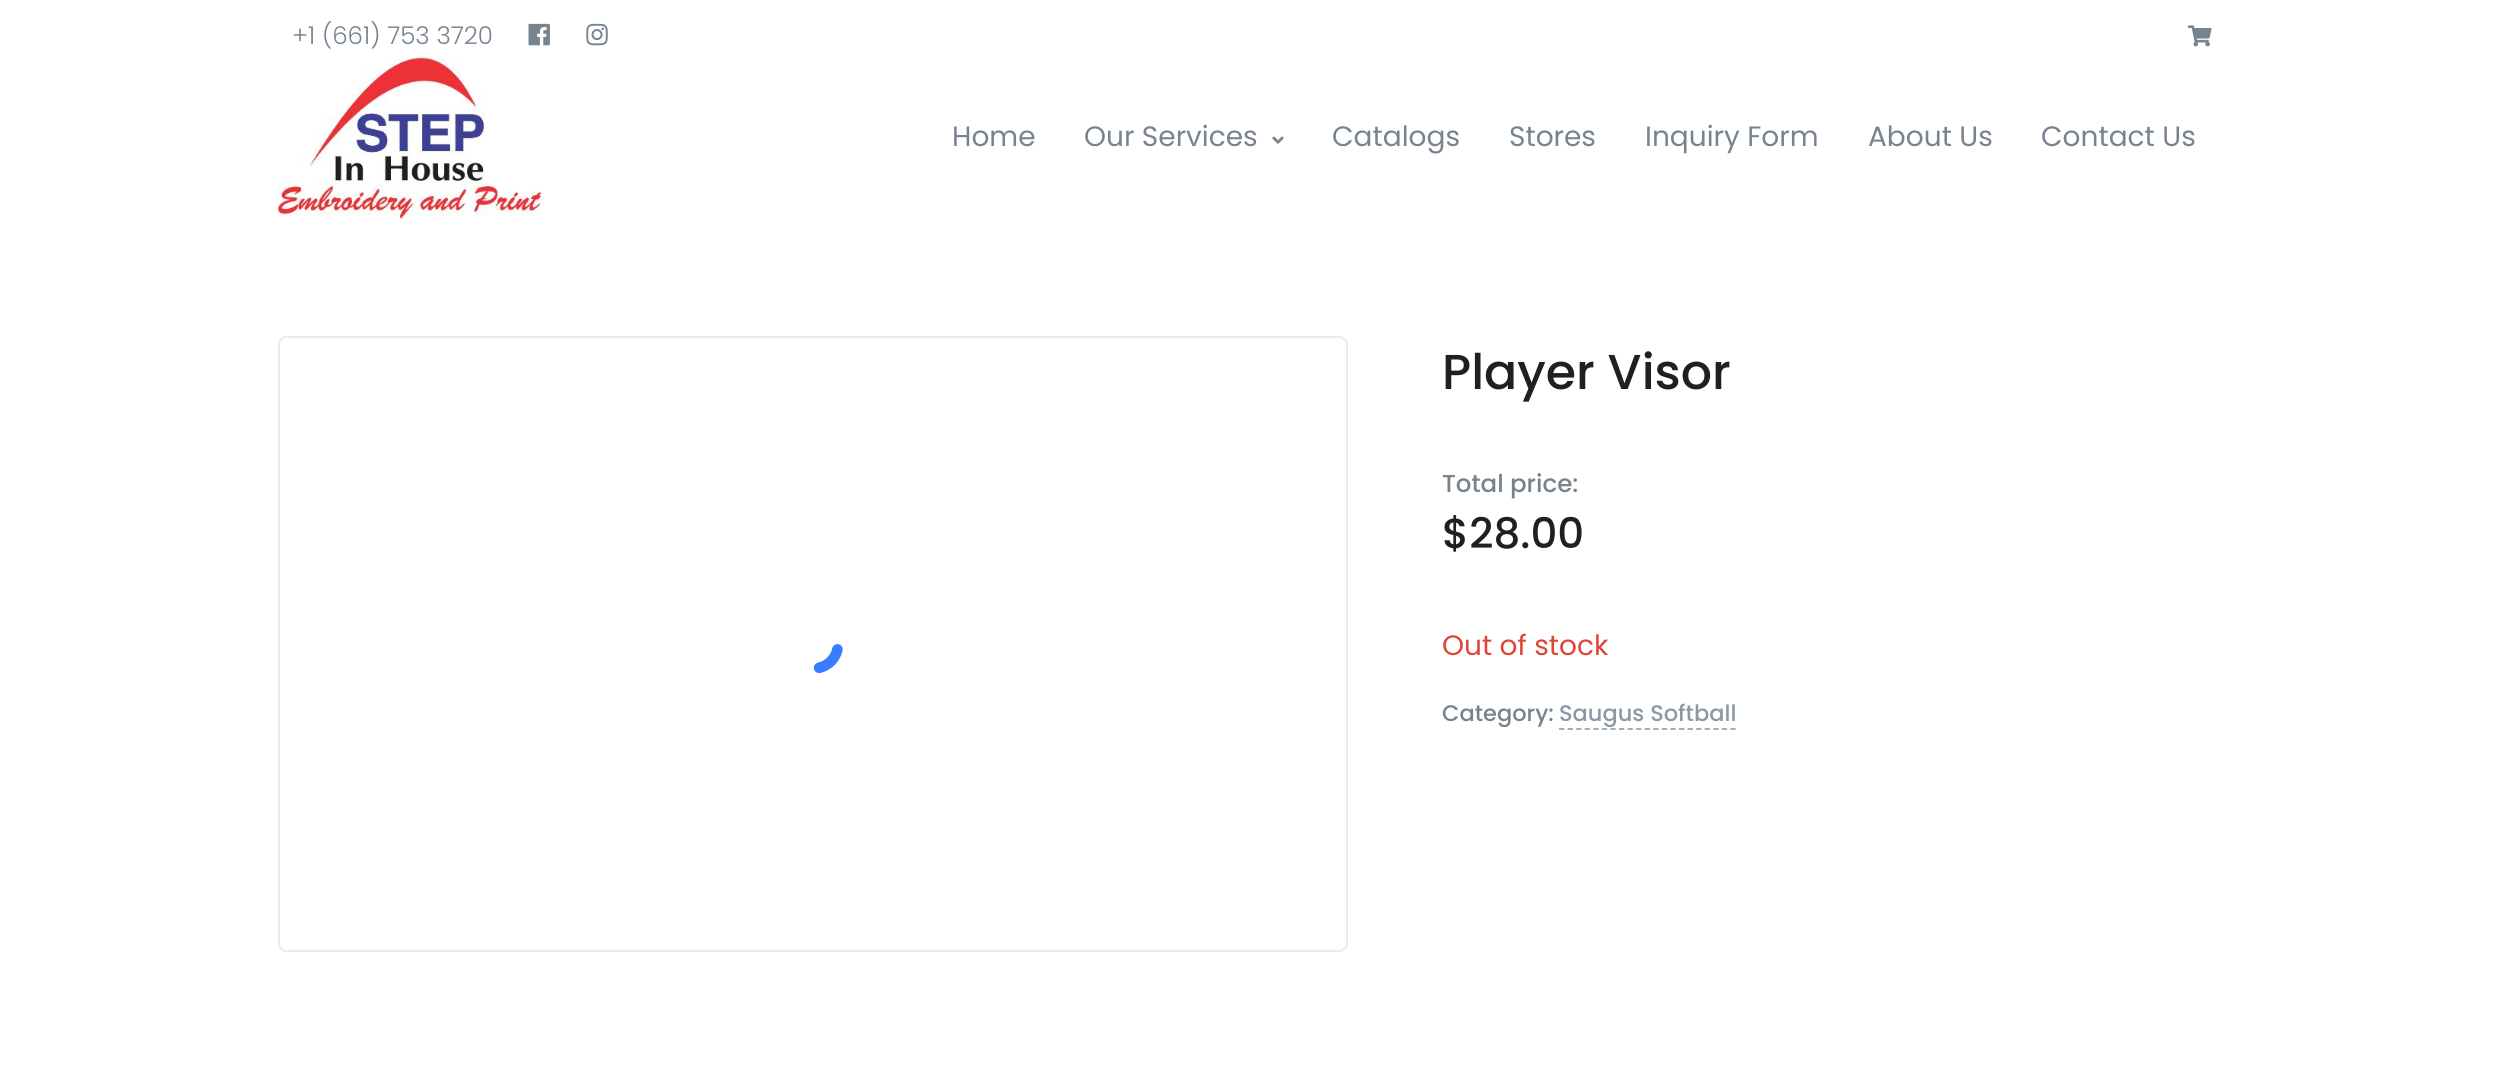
#include <cairo/cairo.h>
#include <math.h>
#include <stddef.h>


static void rounded_rect(cairo_t *cr, double x, double y, double w, double h, double r) {
  cairo_new_sub_path(cr);
  cairo_arc(cr, x + w - r, y + h - r, r, 0, M_PI / 2);
  cairo_arc(cr, x + r, y + h - r, r, M_PI / 2, M_PI);
  cairo_arc(cr, x + r, y + r, r, M_PI, 1.5 * M_PI);
  cairo_arc(cr, x + w - r, y + r, r, 1.5 * M_PI, 2 * M_PI);
  cairo_close_path(cr);
}

static void draw_image(cairo_t *cr, const char *path, double x, double y, double w, double h) {
  cairo_surface_t *image = cairo_image_surface_create_from_png(path);
  cairo_save(cr);
  cairo_set_source_surface(cr, image, x, y);
  cairo_rectangle(cr, x, y, w, h);
  cairo_fill(cr);
  cairo_restore(cr);
  cairo_surface_destroy(image);
}

static void draw(cairo_t *cr) {
  cairo_set_source_rgb(cr, 1, 1, 1);
  cairo_paint(cr);
  draw_image(cr, "images/1.png", 528, 23, 22, 23);
  draw_image(cr, "images/2.png", 586, 23, 22, 23);
  draw_image(cr, "images/3.png", 2187, 25, 25, 22);
  draw_image(cr, "images/4.png", 278, 57, 263, 162);
  draw_image(cr, "images/5.png", 1272, 136, 12, 8);
  draw_image(cr, "images/6.png", 813, 644, 30, 30);
  rounded_rect(cr, 279, 337, 1068, 614, 8);
  cairo_set_source_rgb(cr, 231 / 255.0, 234 / 255.0, 243 / 255.0);
  cairo_stroke(cr);
  cairo_new_path(cr);
  cairo_move_to(cr, 1559, 729);
  cairo_line_to(cr, 1736, 729);
  cairo_set_source_rgb(cr, 151 / 255.0, 164 / 255.0, 175 / 255.0);
  cairo_set_line_width(cr, 1.8);
  cairo_set_dash(cr, (double[]){5.25, 3.32}, 2, 0);
  cairo_stroke(cr);
  cairo_select_font_face(cr, "Poppins Light", CAIRO_FONT_SLANT_NORMAL, CAIRO_FONT_WEIGHT_NORMAL);
  cairo_set_font_size(cr, 24.5);
  cairo_set_source_rgb(cr, 119 / 255.0, 131 / 255.0, 143 / 255.0);
  cairo_move_to(cr, 292, 44);
  cairo_show_text(cr, "+1 (661) 753 3720");
  cairo_select_font_face(cr, "Poppins", CAIRO_FONT_SLANT_NORMAL, CAIRO_FONT_WEIGHT_NORMAL);
  cairo_set_font_size(cr, 28);
  cairo_move_to(cr, 952, 146);
  cairo_show_text(cr, "Home");
  cairo_move_to(cr, 1084, 146);
  cairo_show_text(cr, "Our Services");
  cairo_move_to(cr, 1332, 146);
  cairo_show_text(cr, "Catalogs");
  cairo_move_to(cr, 1509, 146);
  cairo_show_text(cr, "Stores");
  cairo_move_to(cr, 1645, 146);
  cairo_show_text(cr, "Inquiry Form");
  cairo_move_to(cr, 1868, 146);
  cairo_show_text(cr, "About Us");
  cairo_move_to(cr, 2041, 146);
  cairo_show_text(cr, "Contact Us");
  cairo_select_font_face(cr, "Poppins Medium", CAIRO_FONT_SLANT_NORMAL, CAIRO_FONT_WEIGHT_NORMAL);
  cairo_set_font_size(cr, 49);
  cairo_set_source_rgb(cr, 30 / 255.0, 32 / 255.0, 34 / 255.0);
  cairo_move_to(cr, 1442, 389);
  cairo_show_text(cr, "Player Visor");
  cairo_set_font_size(cr, 24.5);
  cairo_set_source_rgb(cr, 119 / 255.0, 131 / 255.0, 143 / 255.0);
  cairo_move_to(cr, 1442, 492);
  cairo_show_text(cr, "Total price:");
  cairo_set_font_size(cr, 42);
  cairo_set_source_rgb(cr, 30 / 255.0, 32 / 255.0, 34 / 255.0);
  cairo_move_to(cr, 1442, 548);
  cairo_show_text(cr, "$28.00");
  cairo_select_font_face(cr, "Poppins", CAIRO_FONT_SLANT_NORMAL, CAIRO_FONT_WEIGHT_NORMAL);
  cairo_set_font_size(cr, 28);
  cairo_set_source_rgb(cr, 222 / 255.0, 68 / 255.0, 55 / 255.0);
  cairo_move_to(cr, 1442, 655);
  cairo_show_text(cr, "Out of stock");
  cairo_select_font_face(cr, "Poppins Medium", CAIRO_FONT_SLANT_NORMAL, CAIRO_FONT_WEIGHT_NORMAL);
  cairo_set_font_size(cr, 22.5);
  cairo_set_source_rgb(cr, 119 / 255.0, 131 / 255.0, 143 / 255.0);
  cairo_move_to(cr, 1442, 721);
  cairo_show_text(cr, "Category:");
  cairo_set_source_rgb(cr, 140 / 255.0, 152 / 255.0, 164 / 255.0);
  cairo_move_to(cr, 1559, 721);
  cairo_show_text(cr, "Saugus Softball");
}

int main(void) {
  cairo_surface_t *surface = cairo_image_surface_create(CAIRO_FORMAT_RGB24, 2498, 1084);
  cairo_t *cr = cairo_create(surface);
  cairo_font_options_t *options = cairo_font_options_create();
  cairo_font_options_set_hint_metrics(options, CAIRO_HINT_METRICS_OFF);
  cairo_font_options_set_hint_style(options, CAIRO_HINT_STYLE_NONE);
  cairo_set_font_options(cr, options);
  cairo_set_miter_limit(cr, 4);
  draw(cr);
  cairo_surface_write_to_png(surface, "out.png");
  cairo_font_options_destroy(options);
  cairo_destroy(cr);
  cairo_surface_destroy(surface);
  return 0;
}
